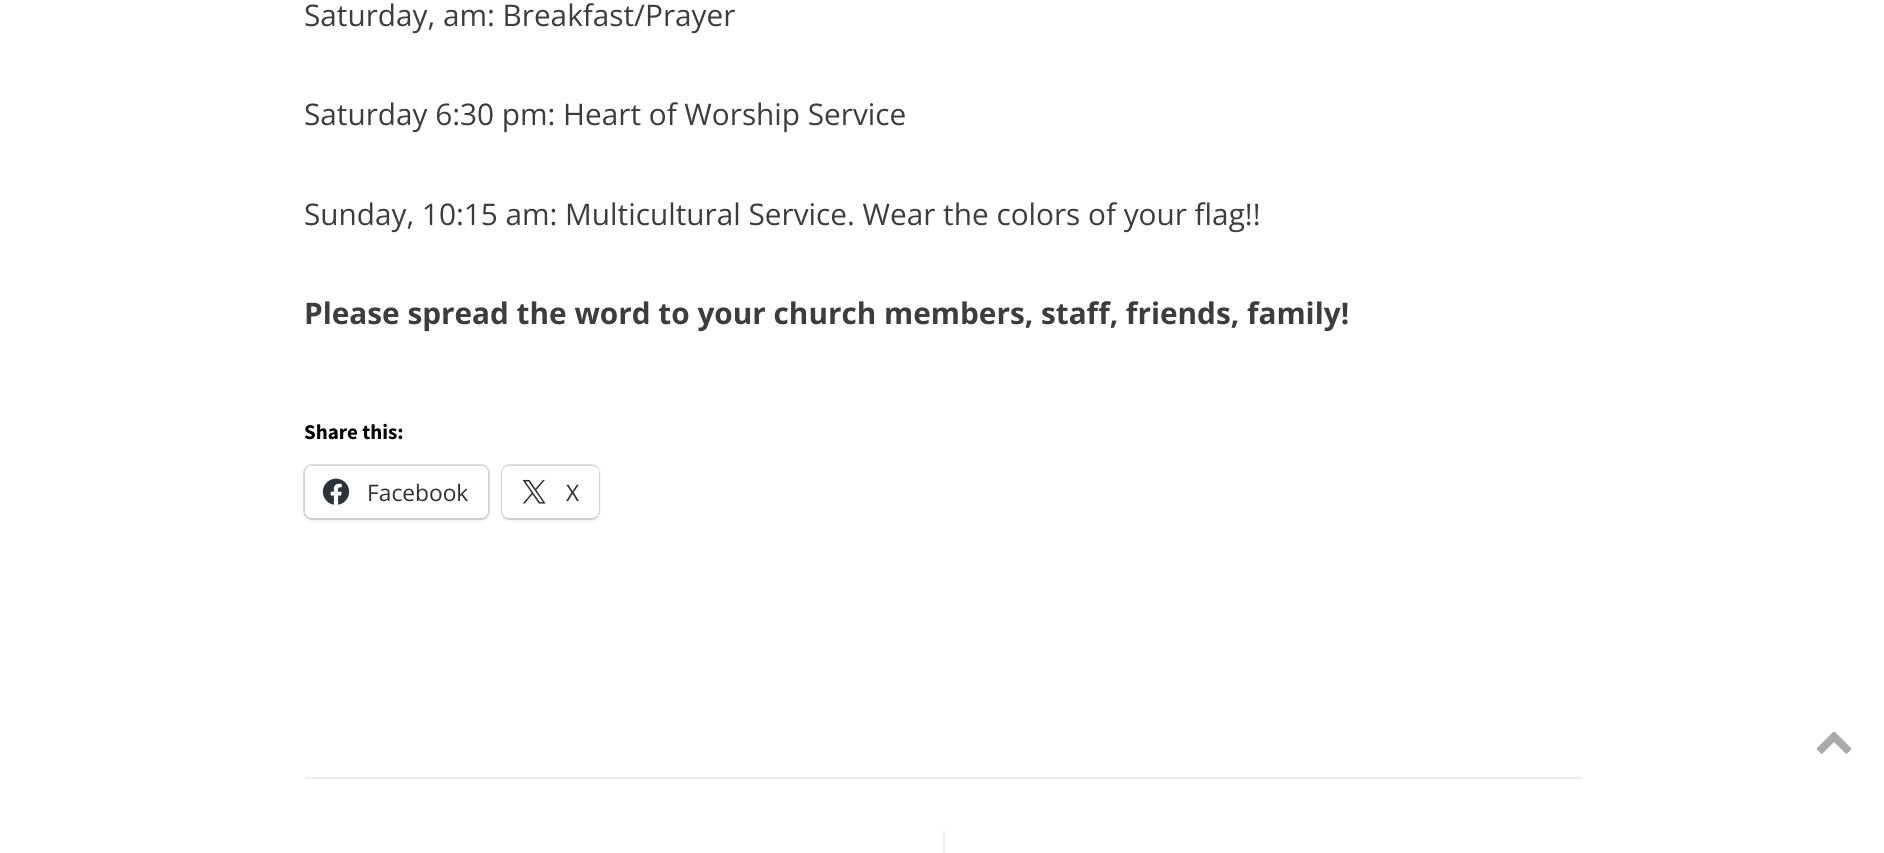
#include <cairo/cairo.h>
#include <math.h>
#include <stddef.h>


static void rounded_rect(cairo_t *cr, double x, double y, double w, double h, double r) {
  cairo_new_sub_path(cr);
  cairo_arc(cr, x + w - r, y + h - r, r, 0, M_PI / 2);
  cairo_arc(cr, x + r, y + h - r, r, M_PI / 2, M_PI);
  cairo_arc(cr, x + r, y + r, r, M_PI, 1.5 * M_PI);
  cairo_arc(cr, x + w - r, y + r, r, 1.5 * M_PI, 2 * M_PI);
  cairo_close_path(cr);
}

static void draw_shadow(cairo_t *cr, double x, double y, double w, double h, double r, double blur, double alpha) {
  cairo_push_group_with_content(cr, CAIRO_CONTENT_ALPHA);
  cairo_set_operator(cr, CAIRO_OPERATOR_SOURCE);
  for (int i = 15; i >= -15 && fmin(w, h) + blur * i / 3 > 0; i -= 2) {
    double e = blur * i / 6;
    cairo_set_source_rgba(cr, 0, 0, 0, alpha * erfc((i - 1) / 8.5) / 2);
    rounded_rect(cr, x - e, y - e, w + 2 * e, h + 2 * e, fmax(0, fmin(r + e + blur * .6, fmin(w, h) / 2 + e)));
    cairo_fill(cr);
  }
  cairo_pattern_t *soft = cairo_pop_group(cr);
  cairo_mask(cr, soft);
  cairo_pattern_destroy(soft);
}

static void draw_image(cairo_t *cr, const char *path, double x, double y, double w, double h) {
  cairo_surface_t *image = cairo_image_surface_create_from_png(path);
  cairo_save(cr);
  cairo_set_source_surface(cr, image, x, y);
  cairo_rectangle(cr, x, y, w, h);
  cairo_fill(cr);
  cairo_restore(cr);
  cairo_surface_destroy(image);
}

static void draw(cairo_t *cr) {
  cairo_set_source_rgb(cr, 1, 1, 1);
  cairo_paint(cr);
  rounded_rect(cr, 304, 465, 185, 54, 8);
  cairo_set_source_rgb(cr, 224 / 255.0, 224 / 255.0, 224 / 255.0);
  cairo_stroke(cr);
  cairo_set_source_rgb(cr, 0, 0, 0);
  draw_shadow(cr, 305, 467, 183, 53, 7, 2, 0.12);
  cairo_set_source_rgb(cr, 1, 1, 1);
  rounded_rect(cr, 305, 466, 183, 52, 7);
  cairo_fill(cr);
  draw_image(cr, "images/1.png", 322, 478, 28, 27);
  rounded_rect(cr, 502, 465, 97, 54, 8);
  cairo_set_source_rgb(cr, 224 / 255.0, 224 / 255.0, 224 / 255.0);
  cairo_stroke(cr);
  cairo_set_source_rgb(cr, 0, 0, 0);
  draw_shadow(cr, 502, 467, 97, 53, 7, 2, 0.12);
  cairo_set_source_rgb(cr, 1, 1, 1);
  rounded_rect(cr, 502, 466, 97, 52, 7);
  cairo_fill(cr);
  draw_image(cr, "images/2.png", 522, 479, 24, 25);
  cairo_set_source_rgb(cr, 238 / 255.0, 238 / 255.0, 238 / 255.0);
  cairo_rectangle(cr, 305, 777, 1277, 2);
  cairo_fill(cr);
  cairo_rectangle(cr, 943, 831, 2, 22);
  cairo_fill(cr);
  draw_image(cr, "images/3.png", 1816, 731, 36, 23);
  cairo_select_font_face(cr, "Open Sans", CAIRO_FONT_SLANT_NORMAL, CAIRO_FONT_WEIGHT_NORMAL);
  cairo_set_font_size(cr, 29.75);
  cairo_set_source_rgb(cr, 61 / 255.0, 61 / 255.0, 61 / 255.0);
  cairo_move_to(cr, 304, 26);
  cairo_show_text(cr, "Saturday, am: Breakfast/Prayer");
  cairo_move_to(cr, 304, 125);
  cairo_show_text(cr, "Saturday 6:30 pm: Heart of Worship Service");
  cairo_move_to(cr, 304, 225);
  cairo_show_text(cr, "Sunday, 10:15 am: Multicultural Service. Wear the colors of your flag!!");
  cairo_select_font_face(cr, "Open Sans", CAIRO_FONT_SLANT_NORMAL, CAIRO_FONT_WEIGHT_BOLD);
  cairo_move_to(cr, 304, 324);
  cairo_show_text(cr, "Please spread the word to your church members, staff, friends, family!");
  cairo_select_font_face(cr, "Source Sans Pro", CAIRO_FONT_SLANT_NORMAL, CAIRO_FONT_WEIGHT_BOLD);
  cairo_set_font_size(cr, 21);
  cairo_set_source_rgb(cr, 2 / 255.0, 2 / 255.0, 2 / 255.0);
  cairo_move_to(cr, 304, 439);
  cairo_show_text(cr, "Share this:");
  cairo_select_font_face(cr, "Open Sans", CAIRO_FONT_SLANT_NORMAL, CAIRO_FONT_WEIGHT_NORMAL);
  cairo_set_font_size(cr, 22.75);
  cairo_set_source_rgb(cr, 44 / 255.0, 51 / 255.0, 56 / 255.0);
  cairo_move_to(cr, 367, 501);
  cairo_show_text(cr, "Facebook");
  cairo_move_to(cr, 566, 501);
  cairo_show_text(cr, "X");
}

int main(void) {
  cairo_surface_t *surface = cairo_image_surface_create(CAIRO_FORMAT_RGB24, 1884, 853);
  cairo_t *cr = cairo_create(surface);
  cairo_font_options_t *options = cairo_font_options_create();
  cairo_font_options_set_hint_metrics(options, CAIRO_HINT_METRICS_OFF);
  cairo_font_options_set_hint_style(options, CAIRO_HINT_STYLE_NONE);
  cairo_set_font_options(cr, options);
  cairo_set_miter_limit(cr, 4);
  draw(cr);
  cairo_surface_write_to_png(surface, "out.png");
  cairo_font_options_destroy(options);
  cairo_destroy(cr);
  cairo_surface_destroy(surface);
  return 0;
}
